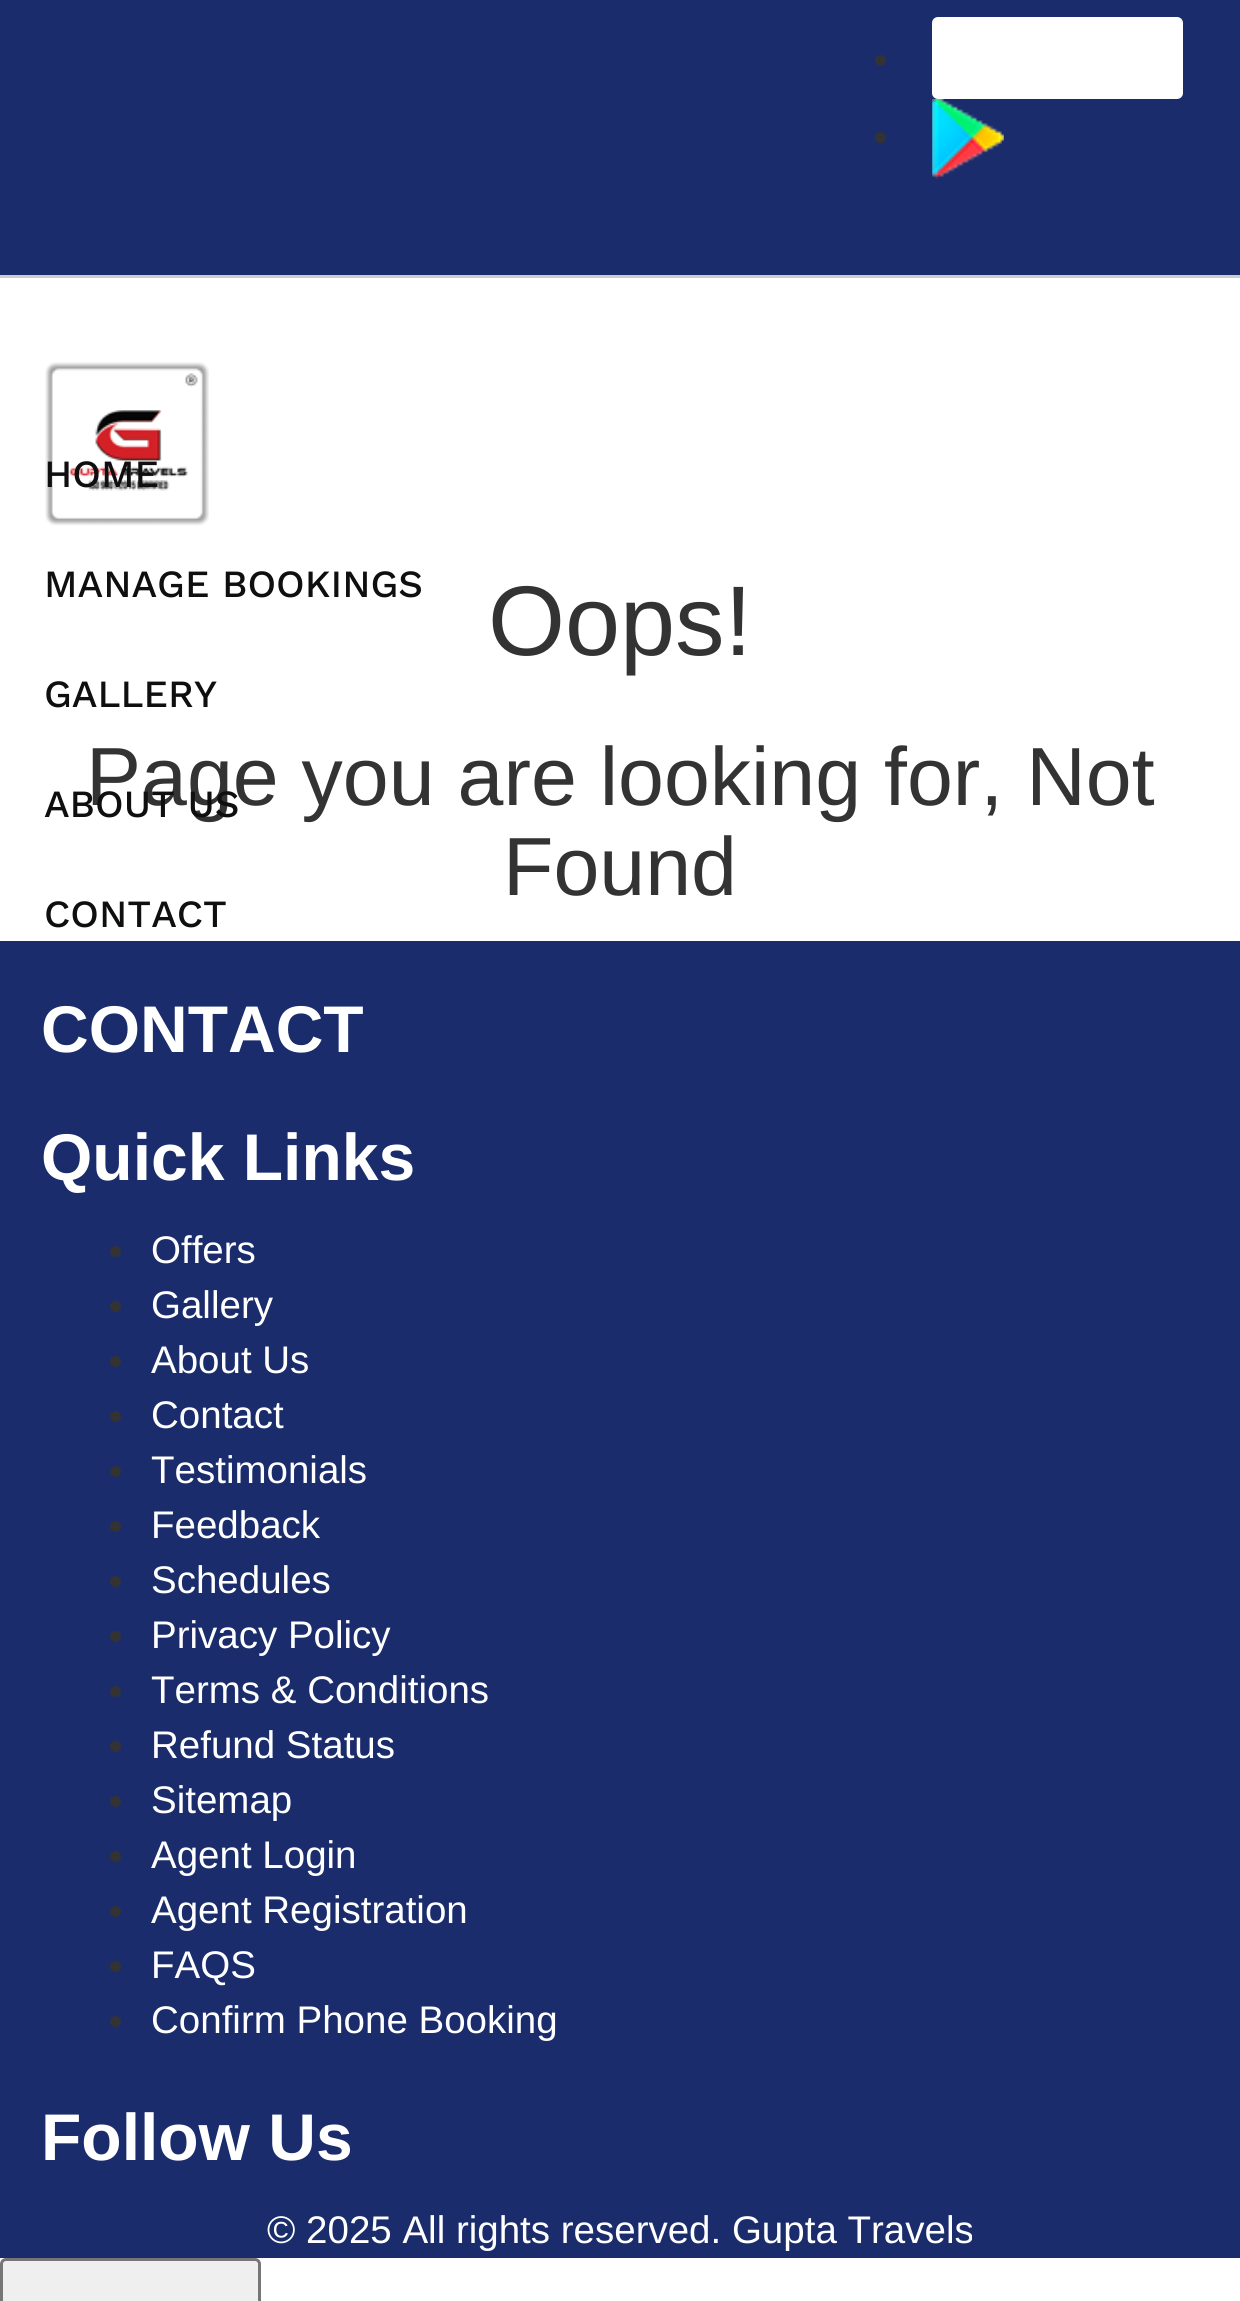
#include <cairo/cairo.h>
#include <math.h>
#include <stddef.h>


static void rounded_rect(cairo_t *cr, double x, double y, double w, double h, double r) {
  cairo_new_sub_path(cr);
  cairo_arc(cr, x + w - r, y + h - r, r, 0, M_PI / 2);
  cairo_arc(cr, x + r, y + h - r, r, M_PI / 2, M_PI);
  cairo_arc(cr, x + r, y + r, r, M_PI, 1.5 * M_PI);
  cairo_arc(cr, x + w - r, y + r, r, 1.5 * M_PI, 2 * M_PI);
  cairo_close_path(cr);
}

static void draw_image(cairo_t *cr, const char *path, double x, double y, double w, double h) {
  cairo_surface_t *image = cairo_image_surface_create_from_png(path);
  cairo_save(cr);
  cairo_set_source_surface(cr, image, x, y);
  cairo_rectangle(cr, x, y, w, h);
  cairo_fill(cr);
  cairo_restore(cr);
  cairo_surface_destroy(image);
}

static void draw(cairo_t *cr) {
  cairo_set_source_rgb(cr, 1, 1, 1);
  cairo_paint(cr);
  cairo_set_source_rgb(cr, 26 / 255.0, 44 / 255.0, 108 / 255.0);
  cairo_rectangle(cr, 0, 0, 1240, 275);
  cairo_fill(cr);
  cairo_set_source_rgb(cr, 205 / 255.0, 205 / 255.0, 205 / 255.0);
  cairo_rectangle(cr, 0, 275, 1240, 3);
  cairo_fill(cr);
  cairo_set_source_rgb(cr, 51 / 255.0, 51 / 255.0, 51 / 255.0);
  cairo_arc(cr, 880.5, 60.5, 5.5, 0, 2 * M_PI);
  cairo_fill(cr);
  cairo_set_source_rgb(cr, 1, 1, 1);
  rounded_rect(cr, 932, 17, 251, 82, 6);
  cairo_fill(cr);
  cairo_set_source_rgb(cr, 51 / 255.0, 51 / 255.0, 51 / 255.0);
  cairo_arc(cr, 880.5, 137.5, 5.5, 0, 2 * M_PI);
  cairo_fill(cr);
  draw_image(cr, "images/1.png", 932, 99, 72, 80);
  draw_image(cr, "images/2.png", 45, 362, 164, 164);
  cairo_set_source_rgb(cr, 26 / 255.0, 44 / 255.0, 108 / 255.0);
  cairo_rectangle(cr, 0, 941, 1240, 1317);
  cairo_fill(cr);
  cairo_set_source_rgb(cr, 51 / 255.0, 51 / 255.0, 51 / 255.0);
  cairo_arc(cr, 115.5, 1251.5, 5.5, 0, 2 * M_PI);
  cairo_fill(cr);
  cairo_arc(cr, 115.5, 1306.5, 5.5, 0, 2 * M_PI);
  cairo_fill(cr);
  cairo_arc(cr, 115.5, 1361.5, 5.5, 0, 2 * M_PI);
  cairo_fill(cr);
  cairo_arc(cr, 115.5, 1416.5, 5.5, 0, 2 * M_PI);
  cairo_fill(cr);
  cairo_arc(cr, 115.5, 1471.5, 5.5, 0, 2 * M_PI);
  cairo_fill(cr);
  cairo_arc(cr, 115.5, 1526.5, 5.5, 0, 2 * M_PI);
  cairo_fill(cr);
  cairo_arc(cr, 115.5, 1581.5, 5.5, 0, 2 * M_PI);
  cairo_fill(cr);
  cairo_arc(cr, 115.5, 1636.5, 5.5, 0, 2 * M_PI);
  cairo_fill(cr);
  cairo_arc(cr, 115.5, 1691.5, 5.5, 0, 2 * M_PI);
  cairo_fill(cr);
  cairo_arc(cr, 115.5, 1746.5, 5.5, 0, 2 * M_PI);
  cairo_fill(cr);
  cairo_arc(cr, 115.5, 1801.5, 5.5, 0, 2 * M_PI);
  cairo_fill(cr);
  cairo_arc(cr, 115.5, 1856.5, 5.5, 0, 2 * M_PI);
  cairo_fill(cr);
  cairo_arc(cr, 115.5, 1911.5, 5.5, 0, 2 * M_PI);
  cairo_fill(cr);
  cairo_arc(cr, 115.5, 1966.5, 5.5, 0, 2 * M_PI);
  cairo_fill(cr);
  cairo_arc(cr, 115.5, 2021.5, 5.5, 0, 2 * M_PI);
  cairo_fill(cr);
  cairo_set_source_rgb(cr, 239 / 255.0, 239 / 255.0, 239 / 255.0);
  rounded_rect(cr, 1.5, 2259.5, 258, 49, 4.5);
  cairo_fill_preserve(cr);
  cairo_set_source_rgb(cr, 118 / 255.0, 118 / 255.0, 118 / 255.0);
  cairo_set_line_width(cr, 3);
  cairo_stroke(cr);
  cairo_select_font_face(cr, "Work Sans Medium", CAIRO_FONT_SLANT_NORMAL, CAIRO_FONT_WEIGHT_NORMAL);
  cairo_set_font_size(cr, 38.5);
  cairo_set_source_rgb(cr, 15 / 255.0, 15 / 255.0, 15 / 255.0);
  cairo_move_to(cr, 44, 487);
  cairo_show_text(cr, "HOME");
  cairo_move_to(cr, 44, 597);
  cairo_show_text(cr, "MANAGE BOOKINGS");
  cairo_move_to(cr, 44, 707);
  cairo_show_text(cr, "GALLERY");
  cairo_move_to(cr, 44, 927);
  cairo_show_text(cr, "CONTACT");
  cairo_select_font_face(cr, "Liberation Sans", CAIRO_FONT_SLANT_NORMAL, CAIRO_FONT_WEIGHT_NORMAL);
  cairo_set_font_size(cr, 99);
  cairo_set_source_rgb(cr, 51 / 255.0, 51 / 255.0, 51 / 255.0);
  cairo_move_to(cr, 488, 655);
  cairo_show_text(cr, "Oops!");
  cairo_set_font_size(cr, 82.5);
  cairo_move_to(cr, 86, 805);
  cairo_show_text(cr, "Page you are looking for, Not");
  cairo_select_font_face(cr, "Work Sans Medium", CAIRO_FONT_SLANT_NORMAL, CAIRO_FONT_WEIGHT_NORMAL);
  cairo_set_font_size(cr, 38.5);
  cairo_set_source_rgb(cr, 15 / 255.0, 15 / 255.0, 15 / 255.0);
  cairo_move_to(cr, 44, 817);
  cairo_show_text(cr, "ABOUT US");
  cairo_select_font_face(cr, "Liberation Sans", CAIRO_FONT_SLANT_NORMAL, CAIRO_FONT_WEIGHT_NORMAL);
  cairo_set_font_size(cr, 82.5);
  cairo_set_source_rgb(cr, 51 / 255.0, 51 / 255.0, 51 / 255.0);
  cairo_move_to(cr, 503, 895);
  cairo_show_text(cr, "Found");
  cairo_select_font_face(cr, "Liberation Sans", CAIRO_FONT_SLANT_NORMAL, CAIRO_FONT_WEIGHT_BOLD);
  cairo_set_font_size(cr, 66);
  cairo_set_source_rgb(cr, 1, 1, 1);
  cairo_move_to(cr, 41, 1052);
  cairo_show_text(cr, "CONTACT");
  cairo_move_to(cr, 41, 1180);
  cairo_show_text(cr, "Quick Links");
  cairo_select_font_face(cr, "Liberation Sans", CAIRO_FONT_SLANT_NORMAL, CAIRO_FONT_WEIGHT_NORMAL);
  cairo_set_font_size(cr, 38.5);
  cairo_move_to(cr, 151, 1263);
  cairo_show_text(cr, "Offers");
  cairo_move_to(cr, 151, 1318);
  cairo_show_text(cr, "Gallery");
  cairo_move_to(cr, 151, 1373);
  cairo_show_text(cr, "About Us");
  cairo_move_to(cr, 151, 1428);
  cairo_show_text(cr, "Contact");
  cairo_move_to(cr, 151, 1483);
  cairo_show_text(cr, "Testimonials");
  cairo_move_to(cr, 151, 1538);
  cairo_show_text(cr, "Feedback");
  cairo_move_to(cr, 151, 1593);
  cairo_show_text(cr, "Schedules");
  cairo_move_to(cr, 151, 1648);
  cairo_show_text(cr, "Privacy Policy");
  cairo_move_to(cr, 151, 1703);
  cairo_show_text(cr, "Terms & Conditions");
  cairo_move_to(cr, 151, 1758);
  cairo_show_text(cr, "Refund Status");
  cairo_move_to(cr, 151, 1813);
  cairo_show_text(cr, "Sitemap");
  cairo_move_to(cr, 151, 1868);
  cairo_show_text(cr, "Agent Login");
  cairo_move_to(cr, 151, 1923);
  cairo_show_text(cr, "Agent Registration");
  cairo_move_to(cr, 151, 1978);
  cairo_show_text(cr, "FAQS");
  cairo_move_to(cr, 151, 2033);
  cairo_show_text(cr, "Confirm Phone Booking");
  cairo_select_font_face(cr, "Liberation Sans", CAIRO_FONT_SLANT_NORMAL, CAIRO_FONT_WEIGHT_BOLD);
  cairo_set_font_size(cr, 66);
  cairo_move_to(cr, 41, 2160);
  cairo_show_text(cr, "Follow Us");
  cairo_select_font_face(cr, "Liberation Sans", CAIRO_FONT_SLANT_NORMAL, CAIRO_FONT_WEIGHT_NORMAL);
  cairo_set_font_size(cr, 38.5);
  cairo_move_to(cr, 267, 2243);
  cairo_show_text(cr, "© 2025 All rights reserved. Gupta Travels");
}

int main(void) {
  cairo_surface_t *surface = cairo_image_surface_create(CAIRO_FORMAT_RGB24, 1240, 2301);
  cairo_t *cr = cairo_create(surface);
  cairo_font_options_t *options = cairo_font_options_create();
  cairo_font_options_set_hint_metrics(options, CAIRO_HINT_METRICS_OFF);
  cairo_font_options_set_hint_style(options, CAIRO_HINT_STYLE_NONE);
  cairo_set_font_options(cr, options);
  cairo_set_miter_limit(cr, 4);
  draw(cr);
  cairo_surface_write_to_png(surface, "out.png");
  cairo_font_options_destroy(options);
  cairo_destroy(cr);
  cairo_surface_destroy(surface);
  return 0;
}
